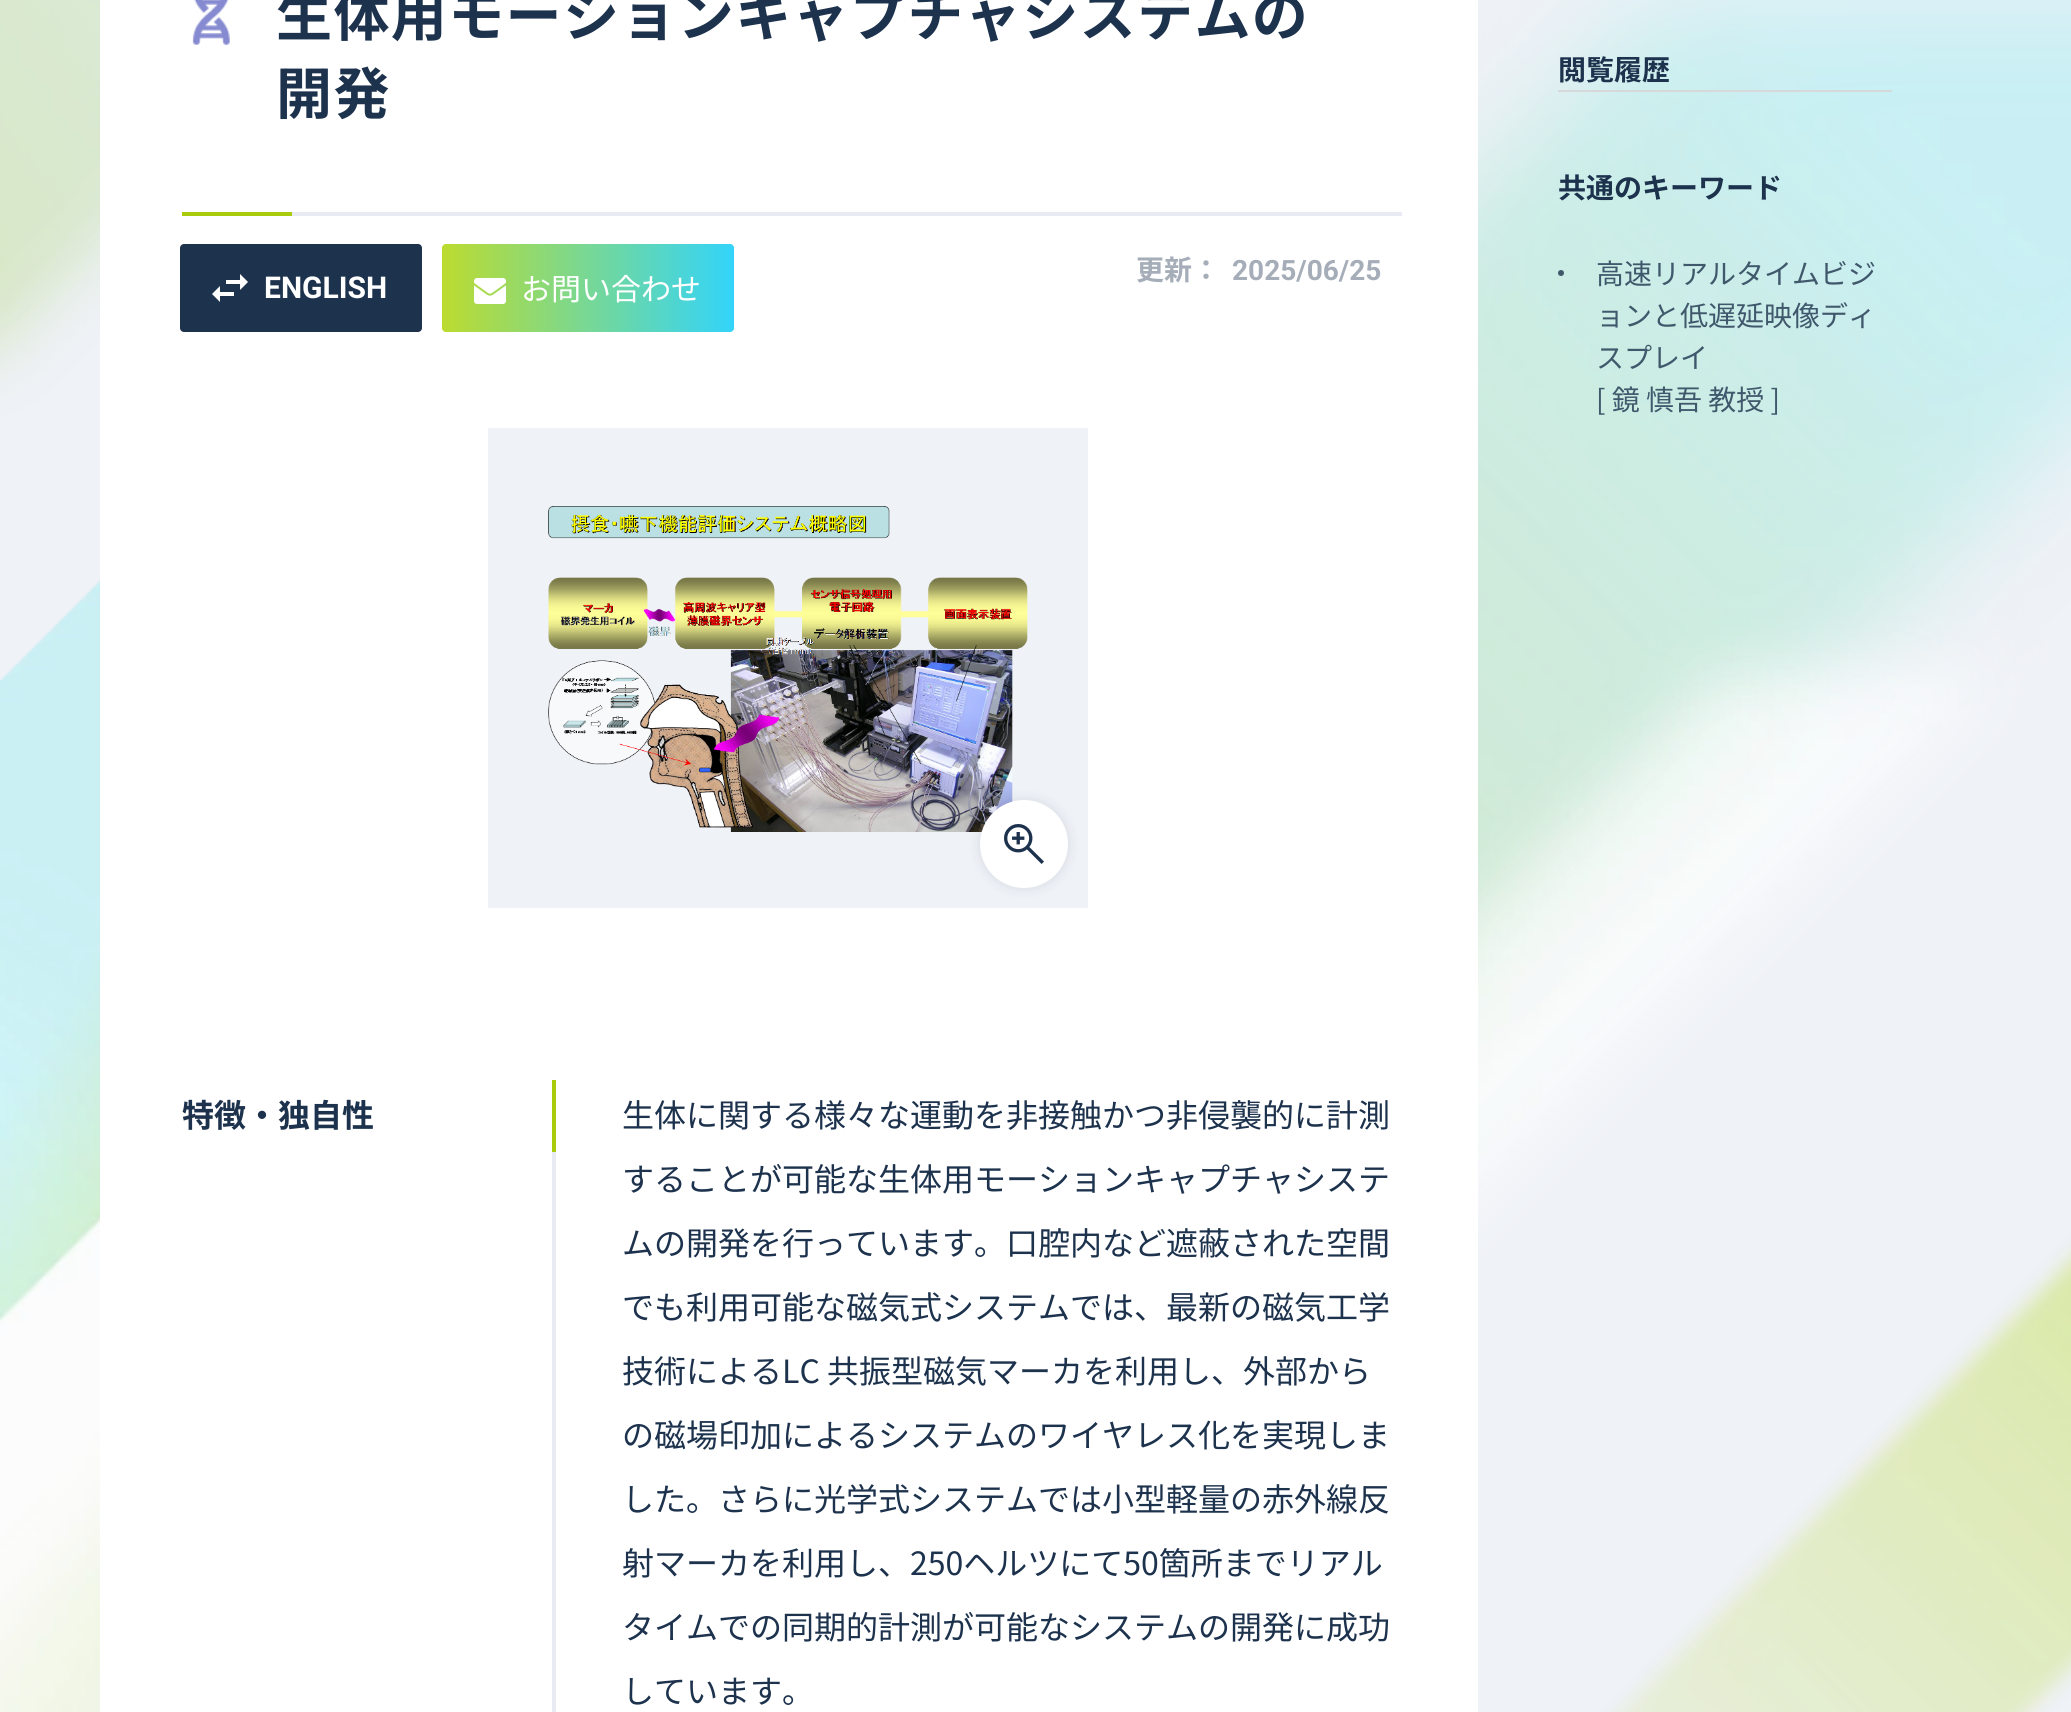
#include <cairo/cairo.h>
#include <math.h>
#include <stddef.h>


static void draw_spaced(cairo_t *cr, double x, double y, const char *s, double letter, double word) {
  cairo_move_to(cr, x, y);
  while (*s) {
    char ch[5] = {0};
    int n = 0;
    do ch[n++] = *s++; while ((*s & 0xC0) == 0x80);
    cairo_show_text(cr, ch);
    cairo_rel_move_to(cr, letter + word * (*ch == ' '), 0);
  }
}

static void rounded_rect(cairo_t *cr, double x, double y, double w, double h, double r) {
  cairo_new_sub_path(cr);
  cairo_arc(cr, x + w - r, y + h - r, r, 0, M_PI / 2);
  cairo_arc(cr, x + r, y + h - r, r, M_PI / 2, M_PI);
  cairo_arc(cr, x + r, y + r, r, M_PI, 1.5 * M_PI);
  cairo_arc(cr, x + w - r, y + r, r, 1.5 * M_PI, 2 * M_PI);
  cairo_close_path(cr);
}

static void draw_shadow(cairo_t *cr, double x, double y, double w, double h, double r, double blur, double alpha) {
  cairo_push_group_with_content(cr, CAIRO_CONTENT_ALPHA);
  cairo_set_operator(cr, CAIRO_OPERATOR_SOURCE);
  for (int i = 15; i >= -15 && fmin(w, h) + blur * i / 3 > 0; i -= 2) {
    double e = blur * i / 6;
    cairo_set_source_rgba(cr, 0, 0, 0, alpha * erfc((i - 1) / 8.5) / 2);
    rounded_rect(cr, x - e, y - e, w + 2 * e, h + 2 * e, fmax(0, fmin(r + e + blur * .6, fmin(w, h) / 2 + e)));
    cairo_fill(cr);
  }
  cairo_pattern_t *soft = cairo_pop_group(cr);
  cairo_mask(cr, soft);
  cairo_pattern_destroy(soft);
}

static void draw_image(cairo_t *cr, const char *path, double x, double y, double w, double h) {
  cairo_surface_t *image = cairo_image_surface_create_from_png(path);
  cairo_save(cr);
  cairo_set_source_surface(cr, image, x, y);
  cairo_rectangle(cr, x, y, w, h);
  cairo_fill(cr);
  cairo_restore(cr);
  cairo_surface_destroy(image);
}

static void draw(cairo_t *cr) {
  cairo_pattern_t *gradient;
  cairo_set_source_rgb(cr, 239 / 255.0, 242 / 255.0, 247 / 255.0);
  cairo_paint(cr);
  draw_image(cr, "images/1.png", 0, 0, 2071, 1712);
  cairo_set_source_rgb(cr, 1, 1, 1);
  cairo_rectangle(cr, 100, 0, 1378, 1712);
  cairo_fill(cr);
  draw_image(cr, "images/2.png", 192, 0, 38, 45);
  cairo_set_source_rgb(cr, 233 / 255.0, 234 / 255.0, 244 / 255.0);
  cairo_rectangle(cr, 292, 212, 1110, 4);
  cairo_fill(cr);
  cairo_set_source_rgb(cr, 168 / 255.0, 204 / 255.0, 12 / 255.0);
  cairo_rectangle(cr, 182, 212, 110, 4);
  cairo_fill(cr);
  cairo_set_source_rgb(cr, 29 / 255.0, 50 / 255.0, 77 / 255.0);
  rounded_rect(cr, 180, 244, 242, 88, 4);
  cairo_fill(cr);
  draw_image(cr, "images/3.png", 212, 274, 36, 28);
  gradient = cairo_pattern_create_linear(442, 288, 1026, 288);
  cairo_pattern_add_color_stop_rgba(gradient, 0, 188 / 255.0, 219 / 255.0, 48 / 255.0, 1);
  cairo_pattern_add_color_stop_rgba(gradient, 0.5, 51 / 255.0, 212 / 255.0, 250 / 255.0, 1);
  cairo_pattern_add_color_stop_rgba(gradient, 1, 188 / 255.0, 219 / 255.0, 48 / 255.0, 1);
  cairo_set_source(cr, gradient);
  cairo_pattern_destroy(gradient);
  rounded_rect(cr, 442, 244, 292, 88, 4);
  cairo_fill(cr);
  draw_image(cr, "images/4.png", 474, 278, 32, 26);
  cairo_set_source_rgb(cr, 239 / 255.0, 242 / 255.0, 247 / 255.0);
  cairo_rectangle(cr, 488, 428, 600, 480);
  cairo_fill(cr);
  draw_image(cr, "images/5.png", 548, 506, 480, 326);
  cairo_set_source_rgb(cr, 29 / 255.0, 50 / 255.0, 77 / 255.0);
  draw_shadow(cr, 980, 800, 88, 88, 44, 6, 0.13);
  cairo_set_source_rgb(cr, 1, 1, 1);
  cairo_arc(cr, 1024, 844, 44, 0, 2 * M_PI);
  cairo_fill(cr);
  draw_image(cr, "images/6.png", 1004, 824, 40, 40);
  cairo_set_source_rgb(cr, 233 / 255.0, 234 / 255.0, 244 / 255.0);
  cairo_rectangle(cr, 552, 1152, 4, 560);
  cairo_fill(cr);
  cairo_set_source_rgb(cr, 168 / 255.0, 204 / 255.0, 12 / 255.0);
  cairo_rectangle(cr, 552, 1080, 4, 72);
  cairo_fill(cr);
  cairo_set_source_rgb(cr, 214 / 255.0, 216 / 255.0, 218 / 255.0);
  cairo_rectangle(cr, 1558, 90, 334, 2);
  cairo_fill(cr);
  cairo_set_source_rgb(cr, 64 / 255.0, 87 / 255.0, 107 / 255.0);
  cairo_arc(cr, 1561, 273, 3, 0, 2 * M_PI);
  cairo_fill(cr);
  cairo_select_font_face(cr, "Noto Sans JP", CAIRO_FONT_SLANT_NORMAL, CAIRO_FONT_WEIGHT_BOLD);
  cairo_set_font_size(cr, 56);
  cairo_set_source_rgb(cr, 29 / 255.0, 50 / 255.0, 77 / 255.0);
  draw_spaced(cr, 276, 36, "生体用モーションキャプチャシステムの", 1.4, 0);
  draw_spaced(cr, 276, 114, "開発", 1.4, 0);
  cairo_set_font_size(cr, 28);
  cairo_set_source_rgb(cr, 165 / 255.0, 173 / 255.0, 184 / 255.0);
  cairo_move_to(cr, 1136, 280);
  cairo_show_text(cr, "更新：");
  cairo_select_font_face(cr, "Roboto", CAIRO_FONT_SLANT_NORMAL, CAIRO_FONT_WEIGHT_BOLD);
  cairo_move_to(cr, 1232, 280);
  cairo_show_text(cr, "2025/06/25");
  cairo_set_font_size(cr, 30);
  cairo_set_source_rgb(cr, 1, 1, 1);
  cairo_move_to(cr, 264, 298);
  cairo_show_text(cr, "ENGLISH");
  cairo_select_font_face(cr, "Noto Sans JP", CAIRO_FONT_SLANT_NORMAL, CAIRO_FONT_WEIGHT_NORMAL);
  cairo_move_to(cr, 521, 300);
  cairo_show_text(cr, "お問い合わせ");
  cairo_select_font_face(cr, "Noto Sans JP", CAIRO_FONT_SLANT_NORMAL, CAIRO_FONT_WEIGHT_BOLD);
  cairo_set_font_size(cr, 32);
  cairo_set_source_rgb(cr, 29 / 255.0, 50 / 255.0, 77 / 255.0);
  cairo_move_to(cr, 182, 1127);
  cairo_show_text(cr, "特徴・独自性");
  cairo_select_font_face(cr, "Noto Sans JP", CAIRO_FONT_SLANT_NORMAL, CAIRO_FONT_WEIGHT_NORMAL);
  cairo_move_to(cr, 622, 1127);
  cairo_show_text(cr, "生体に関する様々な運動を非接触かつ非侵襲的に計測");
  cairo_move_to(cr, 622, 1191);
  cairo_show_text(cr, "することが可能な生体用モーションキャプチャシステ");
  cairo_move_to(cr, 622, 1255);
  cairo_show_text(cr, "ムの開発を行っています。口腔内など遮蔽された空間");
  cairo_move_to(cr, 622, 1319);
  cairo_show_text(cr, "でも利用可能な磁気式システムでは、最新の磁気工学");
  cairo_move_to(cr, 622, 1383);
  cairo_show_text(cr, "技術によるLC 共振型磁気マーカを利用し、外部から");
  cairo_move_to(cr, 622, 1447);
  cairo_show_text(cr, "の磁場印加によるシステムのワイヤレス化を実現しま");
  cairo_move_to(cr, 622, 1511);
  cairo_show_text(cr, "した。さらに光学式システムでは小型軽量の赤外線反");
  cairo_move_to(cr, 622, 1575);
  cairo_show_text(cr, "射マーカを利用し、250ヘルツにて50箇所までリアル");
  cairo_move_to(cr, 622, 1639);
  cairo_show_text(cr, "タイムでの同期的計測が可能なシステムの開発に成功");
  cairo_move_to(cr, 622, 1703);
  cairo_show_text(cr, "しています。");
  cairo_select_font_face(cr, "Noto Sans JP", CAIRO_FONT_SLANT_NORMAL, CAIRO_FONT_WEIGHT_BOLD);
  cairo_set_font_size(cr, 28);
  cairo_move_to(cr, 1558, 80);
  cairo_show_text(cr, "閲覧履歴");
  cairo_move_to(cr, 1558, 198);
  cairo_show_text(cr, "共通のキーワード");
  cairo_select_font_face(cr, "Noto Sans JP", CAIRO_FONT_SLANT_NORMAL, CAIRO_FONT_WEIGHT_NORMAL);
  cairo_set_source_rgb(cr, 64 / 255.0, 88 / 255.0, 108 / 255.0);
  cairo_move_to(cr, 1596, 284);
  cairo_show_text(cr, "高速リアルタイムビジ");
  cairo_move_to(cr, 1596, 326);
  cairo_show_text(cr, "ョンと低遅延映像ディ");
  cairo_move_to(cr, 1596, 368);
  cairo_show_text(cr, "スプレイ");
  cairo_move_to(cr, 1596, 410);
  cairo_show_text(cr, "[ 鏡 慎吾 教授 ]");
}

int main(void) {
  cairo_surface_t *surface = cairo_image_surface_create(CAIRO_FORMAT_RGB24, 2071, 1712);
  cairo_t *cr = cairo_create(surface);
  cairo_font_options_t *options = cairo_font_options_create();
  cairo_font_options_set_hint_metrics(options, CAIRO_HINT_METRICS_OFF);
  cairo_font_options_set_hint_style(options, CAIRO_HINT_STYLE_NONE);
  cairo_set_font_options(cr, options);
  cairo_set_miter_limit(cr, 4);
  draw(cr);
  cairo_surface_write_to_png(surface, "out.png");
  cairo_font_options_destroy(options);
  cairo_destroy(cr);
  cairo_surface_destroy(surface);
  return 0;
}
